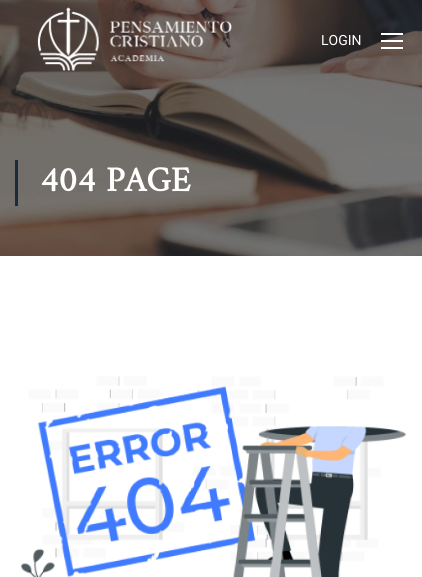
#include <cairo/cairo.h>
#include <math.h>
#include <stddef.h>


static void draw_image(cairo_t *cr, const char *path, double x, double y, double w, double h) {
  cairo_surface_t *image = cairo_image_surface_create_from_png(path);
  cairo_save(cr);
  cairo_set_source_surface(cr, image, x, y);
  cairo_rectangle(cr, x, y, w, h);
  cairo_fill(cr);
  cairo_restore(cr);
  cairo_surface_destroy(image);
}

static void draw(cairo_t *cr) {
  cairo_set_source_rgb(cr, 1, 1, 1);
  cairo_paint(cr);
  draw_image(cr, "images/2.png", 0, 0, 422, 256);
  draw_image(cr, "images/1.png", 37, 7, 196, 64);
  cairo_set_source_rgb(cr, 1, 1, 1);
  cairo_rectangle(cr, 381, 33, 22, 2);
  cairo_fill(cr);
  cairo_rectangle(cr, 381, 40, 22, 2);
  cairo_fill(cr);
  cairo_rectangle(cr, 381, 47, 22, 2);
  cairo_fill(cr);
  cairo_set_source_rgb(cr, 26 / 255.0, 44 / 255.0, 60 / 255.0);
  cairo_rectangle(cr, 15, 160, 3, 46);
  cairo_fill(cr);
  draw_image(cr, "images/3.png", 20, 376, 387, 201);
  cairo_select_font_face(cr, "Roboto", CAIRO_FONT_SLANT_NORMAL, CAIRO_FONT_WEIGHT_NORMAL);
  cairo_set_font_size(cr, 14);
  cairo_set_source_rgb(cr, 1, 1, 1);
  cairo_move_to(cr, 321, 45);
  cairo_show_text(cr, "LOGIN");
  cairo_select_font_face(cr, "Amiri", CAIRO_FONT_SLANT_NORMAL, CAIRO_FONT_WEIGHT_BOLD);
  cairo_set_font_size(cr, 35);
  cairo_move_to(cr, 40, 191);
  cairo_show_text(cr, "404 PAGE");
}

int main(void) {
  cairo_surface_t *surface = cairo_image_surface_create(CAIRO_FORMAT_RGB24, 422, 577);
  cairo_t *cr = cairo_create(surface);
  cairo_font_options_t *options = cairo_font_options_create();
  cairo_font_options_set_hint_metrics(options, CAIRO_HINT_METRICS_OFF);
  cairo_font_options_set_hint_style(options, CAIRO_HINT_STYLE_NONE);
  cairo_set_font_options(cr, options);
  cairo_set_miter_limit(cr, 4);
  draw(cr);
  cairo_surface_write_to_png(surface, "out.png");
  cairo_font_options_destroy(options);
  cairo_destroy(cr);
  cairo_surface_destroy(surface);
  return 0;
}
